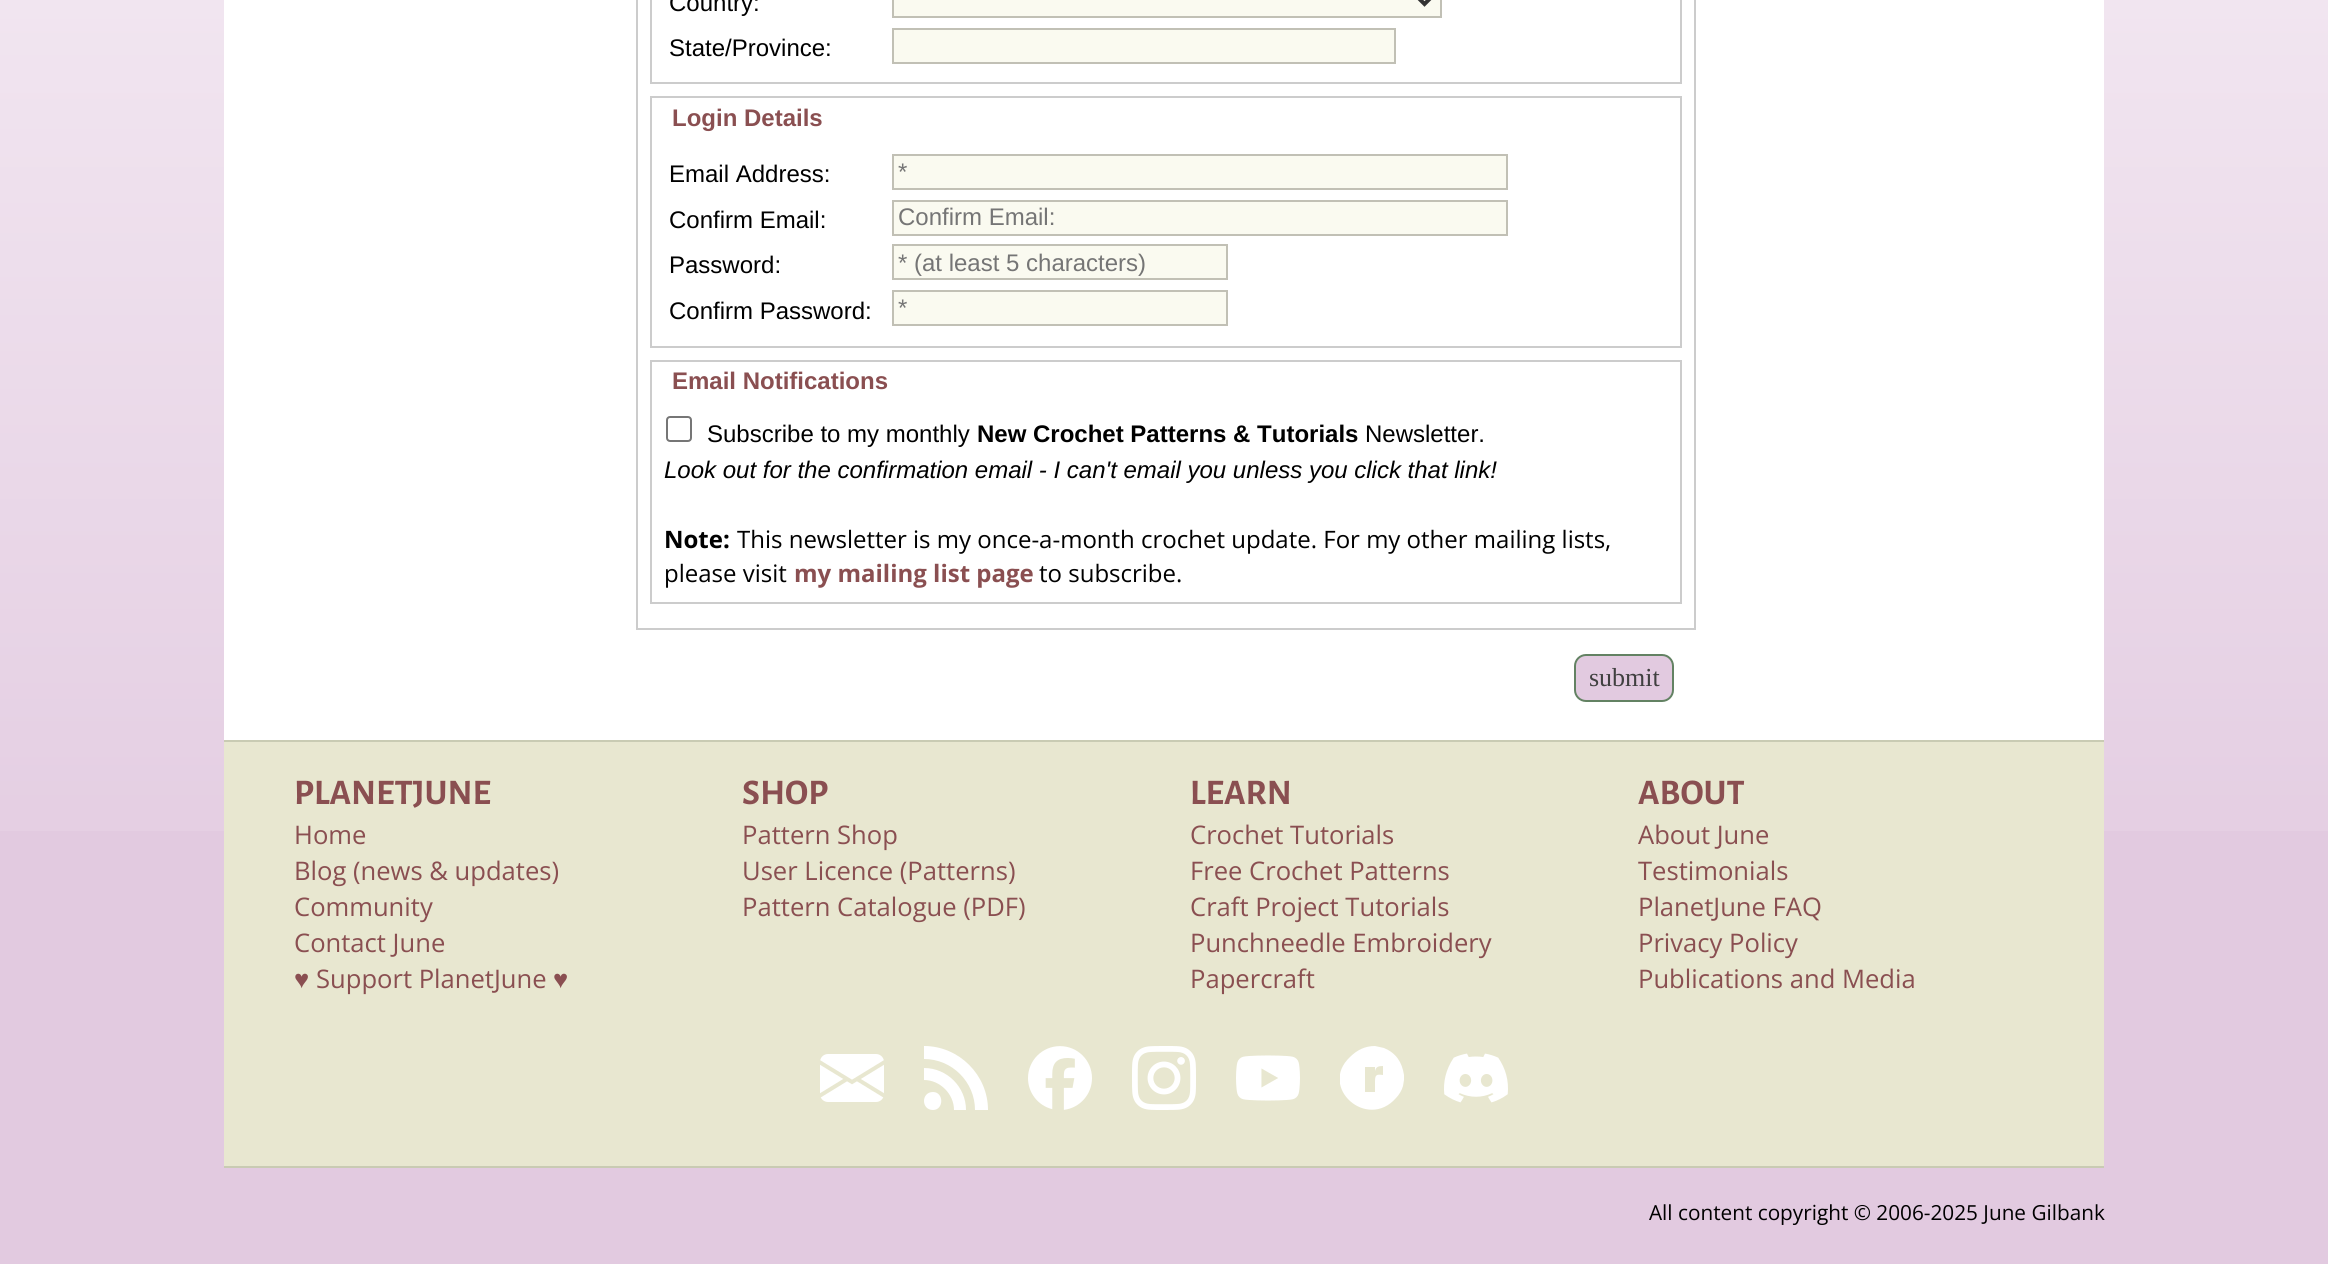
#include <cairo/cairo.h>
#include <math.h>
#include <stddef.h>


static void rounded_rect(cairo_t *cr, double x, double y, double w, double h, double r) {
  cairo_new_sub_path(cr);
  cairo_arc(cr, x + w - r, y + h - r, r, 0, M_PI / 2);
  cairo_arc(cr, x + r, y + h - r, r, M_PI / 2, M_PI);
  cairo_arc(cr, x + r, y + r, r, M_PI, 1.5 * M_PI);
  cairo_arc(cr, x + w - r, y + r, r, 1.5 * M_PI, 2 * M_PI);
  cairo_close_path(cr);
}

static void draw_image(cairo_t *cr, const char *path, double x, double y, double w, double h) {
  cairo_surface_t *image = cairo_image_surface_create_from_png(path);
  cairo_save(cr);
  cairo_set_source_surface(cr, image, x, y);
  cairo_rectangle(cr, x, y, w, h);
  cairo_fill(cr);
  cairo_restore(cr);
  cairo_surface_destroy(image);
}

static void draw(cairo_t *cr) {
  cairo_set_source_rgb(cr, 226 / 255.0, 202 / 255.0, 224 / 255.0);
  cairo_paint(cr);
  draw_image(cr, "images/1.png", 0, 0, 2328, 831);
  cairo_set_source_rgb(cr, 1, 1, 1);
  cairo_rectangle(cr, 224, 0, 1880, 740);
  cairo_fill(cr);
  cairo_rectangle(cr, 637, -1, 1058, 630);
  cairo_set_source_rgb(cr, 204 / 255.0, 204 / 255.0, 204 / 255.0);
  cairo_stroke(cr);
  cairo_rectangle(cr, 651, -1, 1030, 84);
  cairo_stroke(cr);
  cairo_set_source_rgb(cr, 250 / 255.0, 250 / 255.0, 240 / 255.0);
  cairo_rectangle(cr, 893, -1, 548, 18);
  cairo_fill_preserve(cr);
  cairo_set_source_rgb(cr, 193 / 255.0, 192 / 255.0, 181 / 255.0);
  cairo_stroke(cr);
  cairo_new_path(cr);
  cairo_move_to(cr, 1416.5, -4);
  cairo_line_to(cr, 1424.5, 4);
  cairo_line_to(cr, 1432.5, -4);
  cairo_set_source_rgb(cr, 51 / 255.0, 51 / 255.0, 51 / 255.0);
  cairo_set_line_width(cr, 4);
  cairo_stroke(cr);
  cairo_set_source_rgb(cr, 250 / 255.0, 250 / 255.0, 240 / 255.0);
  cairo_rectangle(cr, 893, 29, 502, 34);
  cairo_fill_preserve(cr);
  cairo_set_source_rgb(cr, 193 / 255.0, 192 / 255.0, 181 / 255.0);
  cairo_set_line_width(cr, 2);
  cairo_stroke(cr);
  cairo_rectangle(cr, 651, 97, 1030, 250);
  cairo_set_source_rgb(cr, 204 / 255.0, 204 / 255.0, 204 / 255.0);
  cairo_stroke(cr);
  cairo_set_source_rgb(cr, 250 / 255.0, 250 / 255.0, 240 / 255.0);
  cairo_rectangle(cr, 893, 155, 614, 34);
  cairo_fill_preserve(cr);
  cairo_set_source_rgb(cr, 193 / 255.0, 192 / 255.0, 181 / 255.0);
  cairo_stroke(cr);
  cairo_set_source_rgb(cr, 250 / 255.0, 250 / 255.0, 240 / 255.0);
  cairo_rectangle(cr, 893, 201, 614, 34);
  cairo_fill_preserve(cr);
  cairo_set_source_rgb(cr, 193 / 255.0, 192 / 255.0, 181 / 255.0);
  cairo_stroke(cr);
  cairo_set_source_rgb(cr, 250 / 255.0, 250 / 255.0, 240 / 255.0);
  cairo_rectangle(cr, 893, 245, 334, 34);
  cairo_fill_preserve(cr);
  cairo_set_source_rgb(cr, 193 / 255.0, 192 / 255.0, 181 / 255.0);
  cairo_stroke(cr);
  cairo_set_source_rgb(cr, 250 / 255.0, 250 / 255.0, 240 / 255.0);
  cairo_rectangle(cr, 893, 291, 334, 34);
  cairo_fill_preserve(cr);
  cairo_set_source_rgb(cr, 193 / 255.0, 192 / 255.0, 181 / 255.0);
  cairo_stroke(cr);
  cairo_rectangle(cr, 651, 361, 1030, 242);
  cairo_set_source_rgb(cr, 204 / 255.0, 204 / 255.0, 204 / 255.0);
  cairo_stroke(cr);
  rounded_rect(cr, 667, 417, 24, 24, 3);
  cairo_set_source_rgb(cr, 118 / 255.0, 118 / 255.0, 118 / 255.0);
  cairo_stroke(cr);
  cairo_set_source_rgb(cr, 226 / 255.0, 202 / 255.0, 224 / 255.0);
  rounded_rect(cr, 1575, 655, 98, 46, 11);
  cairo_fill_preserve(cr);
  cairo_set_source_rgb(cr, 99 / 255.0, 130 / 255.0, 99 / 255.0);
  cairo_stroke(cr);
  cairo_set_source_rgb(cr, 232 / 255.0, 231 / 255.0, 208 / 255.0);
  cairo_rectangle(cr, 224, 742, 1880, 424);
  cairo_fill(cr);
  cairo_set_source_rgb(cr, 201 / 255.0, 203 / 255.0, 179 / 255.0);
  cairo_rectangle(cr, 224, 740, 1880, 2);
  cairo_fill(cr);
  cairo_rectangle(cr, 224, 1166, 1880, 2);
  cairo_fill(cr);
  draw_image(cr, "images/2.png", 820, 1054, 64, 48);
  cairo_set_source_rgb(cr, 1, 1, 1);
  cairo_new_path(cr);
  cairo_move_to(cr, 975, 1110);
  cairo_curve_to(cr, 975, 1082, 952, 1059, 924, 1059);
  cairo_line_to(cr, 924, 1046);
  cairo_curve_to(cr, 959, 1046, 988, 1075, 988, 1110);
  cairo_close_path(cr);
  cairo_move_to(cr, 933, 1092);
  cairo_curve_to(cr, 944, 1092, 944, 1110, 933, 1110);
  cairo_curve_to(cr, 921, 1110, 921, 1092, 933, 1092);
  cairo_close_path(cr);
  cairo_move_to(cr, 966, 1110);
  cairo_line_to(cr, 954, 1110);
  cairo_curve_to(cr, 954, 1094, 940, 1080, 924, 1080);
  cairo_line_to(cr, 924, 1068);
  cairo_curve_to(cr, 947, 1068, 966, 1087, 966, 1110);
  cairo_close_path(cr);
  cairo_fill(cr);
  draw_image(cr, "images/3.png", 1028, 1046, 64, 64);
  draw_image(cr, "images/4.png", 1132, 1046, 64, 64);
  draw_image(cr, "images/5.png", 1236, 1055, 64, 46);
  cairo_save(cr);
  cairo_rectangle(cr, 1340, 1046, 64, 64);
  cairo_clip(cr);
  cairo_new_path(cr);
  cairo_move_to(cr, 1404, 1075);
  cairo_curve_to(cr, 1402, 1062, 1396, 1053, 1384, 1048);
  cairo_line_to(cr, 1375, 1046);
  cairo_curve_to(cr, 1365, 1046, 1357, 1050, 1350, 1057);
  cairo_curve_to(cr, 1318, 1087, 1367, 1131, 1396, 1098);
  cairo_curve_to(cr, 1399, 1095, 1402, 1090, 1403, 1086);
  cairo_line_to(cr, 1404, 1080);
  cairo_close_path(cr);
  cairo_move_to(cr, 1383, 1075);
  cairo_curve_to(cr, 1376, 1074, 1375, 1075, 1375, 1082);
  cairo_line_to(cr, 1375, 1092);
  cairo_line_to(cr, 1365, 1092);
  cairo_line_to(cr, 1365, 1067);
  cairo_line_to(cr, 1375, 1067);
  cairo_line_to(cr, 1375, 1071);
  cairo_curve_to(cr, 1376, 1067, 1378, 1066, 1383, 1066);
  cairo_close_path(cr);
  cairo_fill(cr);
  cairo_restore(cr);
  draw_image(cr, "images/6.png", 1444, 1053, 64, 50);
  cairo_select_font_face(cr, "Liberation Sans", CAIRO_FONT_SLANT_NORMAL, CAIRO_FONT_WEIGHT_NORMAL);
  cairo_set_font_size(cr, 24);
  cairo_set_source_rgb(cr, 0, 0, 0);
  cairo_move_to(cr, 669, 11);
  cairo_show_text(cr, "Country:");
  cairo_move_to(cr, 669, 56);
  cairo_show_text(cr, "State/Province:");
  cairo_select_font_face(cr, "Liberation Sans", CAIRO_FONT_SLANT_NORMAL, CAIRO_FONT_WEIGHT_BOLD);
  cairo_set_source_rgb(cr, 138 / 255.0, 79 / 255.0, 81 / 255.0);
  cairo_move_to(cr, 672, 126);
  cairo_show_text(cr, "Login Details");
  cairo_select_font_face(cr, "Liberation Sans", CAIRO_FONT_SLANT_NORMAL, CAIRO_FONT_WEIGHT_NORMAL);
  cairo_set_source_rgb(cr, 0, 0, 0);
  cairo_move_to(cr, 669, 182);
  cairo_show_text(cr, "Email Address:");
  cairo_set_source_rgb(cr, 117 / 255.0, 117 / 255.0, 117 / 255.0);
  cairo_move_to(cr, 898, 180);
  cairo_show_text(cr, "*");
  cairo_set_source_rgb(cr, 0, 0, 0);
  cairo_move_to(cr, 669, 228);
  cairo_show_text(cr, "Confirm Email:");
  cairo_set_source_rgb(cr, 117 / 255.0, 117 / 255.0, 117 / 255.0);
  cairo_move_to(cr, 898, 225);
  cairo_show_text(cr, "Confirm Email:");
  cairo_set_source_rgb(cr, 0, 0, 0);
  cairo_move_to(cr, 669, 273);
  cairo_show_text(cr, "Password:");
  cairo_set_source_rgb(cr, 117 / 255.0, 117 / 255.0, 117 / 255.0);
  cairo_move_to(cr, 898, 271);
  cairo_show_text(cr, "* (at least 5 characters)");
  cairo_set_source_rgb(cr, 0, 0, 0);
  cairo_move_to(cr, 669, 319);
  cairo_show_text(cr, "Confirm Password:");
  cairo_set_source_rgb(cr, 117 / 255.0, 117 / 255.0, 117 / 255.0);
  cairo_move_to(cr, 898, 316);
  cairo_show_text(cr, "*");
  cairo_select_font_face(cr, "Liberation Sans", CAIRO_FONT_SLANT_NORMAL, CAIRO_FONT_WEIGHT_BOLD);
  cairo_set_source_rgb(cr, 138 / 255.0, 79 / 255.0, 81 / 255.0);
  cairo_move_to(cr, 672, 389);
  cairo_show_text(cr, "Email Notifications");
  cairo_select_font_face(cr, "Liberation Sans", CAIRO_FONT_SLANT_NORMAL, CAIRO_FONT_WEIGHT_NORMAL);
  cairo_set_source_rgb(cr, 0, 0, 0);
  cairo_move_to(cr, 707, 442);
  cairo_show_text(cr, "Subscribe to my monthly");
  cairo_select_font_face(cr, "Liberation Sans", CAIRO_FONT_SLANT_NORMAL, CAIRO_FONT_WEIGHT_BOLD);
  cairo_move_to(cr, 977, 442);
  cairo_show_text(cr, "New Crochet Patterns & Tutorials");
  cairo_select_font_face(cr, "Liberation Sans", CAIRO_FONT_SLANT_NORMAL, CAIRO_FONT_WEIGHT_NORMAL);
  cairo_move_to(cr, 1365, 442);
  cairo_show_text(cr, "Newsletter.");
  cairo_select_font_face(cr, "Liberation Sans", CAIRO_FONT_SLANT_ITALIC, CAIRO_FONT_WEIGHT_NORMAL);
  cairo_move_to(cr, 664, 478);
  cairo_show_text(cr, "Look out for the confirmation email - I can't email you unless you click that link!");
  cairo_select_font_face(cr, "Open Sans", CAIRO_FONT_SLANT_NORMAL, CAIRO_FONT_WEIGHT_BOLD);
  cairo_move_to(cr, 664, 548);
  cairo_show_text(cr, "Note:");
  cairo_select_font_face(cr, "Open Sans", CAIRO_FONT_SLANT_NORMAL, CAIRO_FONT_WEIGHT_NORMAL);
  cairo_move_to(cr, 737, 548);
  cairo_show_text(cr, "This newsletter is my once-a-month crochet update. For my other mailing lists,");
  cairo_move_to(cr, 664, 582);
  cairo_show_text(cr, "please visit");
  cairo_select_font_face(cr, "Open Sans", CAIRO_FONT_SLANT_NORMAL, CAIRO_FONT_WEIGHT_BOLD);
  cairo_set_source_rgb(cr, 138 / 255.0, 79 / 255.0, 81 / 255.0);
  cairo_move_to(cr, 794, 582);
  cairo_show_text(cr, "my mailing list page");
  cairo_select_font_face(cr, "Open Sans", CAIRO_FONT_SLANT_NORMAL, CAIRO_FONT_WEIGHT_NORMAL);
  cairo_set_source_rgb(cr, 0, 0, 0);
  cairo_move_to(cr, 1039, 582);
  cairo_show_text(cr, "to subscribe.");
  cairo_select_font_face(cr, "Liberation Serif", CAIRO_FONT_SLANT_NORMAL, CAIRO_FONT_WEIGHT_NORMAL);
  cairo_set_font_size(cr, 26);
  cairo_set_source_rgb(cr, 64 / 255.0, 64 / 255.0, 64 / 255.0);
  cairo_move_to(cr, 1589, 686);
  cairo_show_text(cr, "submit");
  cairo_select_font_face(cr, "Alegreya Sans", CAIRO_FONT_SLANT_NORMAL, CAIRO_FONT_WEIGHT_BOLD);
  cairo_set_font_size(cr, 36);
  cairo_set_source_rgb(cr, 138 / 255.0, 79 / 255.0, 81 / 255.0);
  cairo_move_to(cr, 294, 804);
  cairo_show_text(cr, "PLANETJUNE");
  cairo_select_font_face(cr, "Open Sans", CAIRO_FONT_SLANT_NORMAL, CAIRO_FONT_WEIGHT_NORMAL);
  cairo_set_font_size(cr, 25.6);
  cairo_move_to(cr, 294, 844);
  cairo_show_text(cr, "Home");
  cairo_move_to(cr, 294, 880);
  cairo_show_text(cr, "Blog (news & updates)");
  cairo_move_to(cr, 294, 916);
  cairo_show_text(cr, "Community");
  cairo_move_to(cr, 294, 952);
  cairo_show_text(cr, "Contact June");
  cairo_select_font_face(cr, "Liberation Sans", CAIRO_FONT_SLANT_NORMAL, CAIRO_FONT_WEIGHT_NORMAL);
  cairo_move_to(cr, 294, 988);
  cairo_show_text(cr, "♥");
  cairo_select_font_face(cr, "Open Sans", CAIRO_FONT_SLANT_NORMAL, CAIRO_FONT_WEIGHT_NORMAL);
  cairo_move_to(cr, 316, 988);
  cairo_show_text(cr, "Support PlanetJune");
  cairo_select_font_face(cr, "Liberation Sans", CAIRO_FONT_SLANT_NORMAL, CAIRO_FONT_WEIGHT_NORMAL);
  cairo_move_to(cr, 553, 988);
  cairo_show_text(cr, "♥");
  cairo_select_font_face(cr, "Alegreya Sans", CAIRO_FONT_SLANT_NORMAL, CAIRO_FONT_WEIGHT_BOLD);
  cairo_set_font_size(cr, 36);
  cairo_move_to(cr, 742, 804);
  cairo_show_text(cr, "SHOP");
  cairo_select_font_face(cr, "Open Sans", CAIRO_FONT_SLANT_NORMAL, CAIRO_FONT_WEIGHT_NORMAL);
  cairo_set_font_size(cr, 25.6);
  cairo_move_to(cr, 742, 844);
  cairo_show_text(cr, "Pattern Shop");
  cairo_move_to(cr, 742, 880);
  cairo_show_text(cr, "User Licence (Patterns)");
  cairo_move_to(cr, 742, 916);
  cairo_show_text(cr, "Pattern Catalogue (PDF)");
  cairo_select_font_face(cr, "Alegreya Sans", CAIRO_FONT_SLANT_NORMAL, CAIRO_FONT_WEIGHT_BOLD);
  cairo_set_font_size(cr, 36);
  cairo_move_to(cr, 1190, 804);
  cairo_show_text(cr, "LEARN");
  cairo_select_font_face(cr, "Open Sans", CAIRO_FONT_SLANT_NORMAL, CAIRO_FONT_WEIGHT_NORMAL);
  cairo_set_font_size(cr, 25.6);
  cairo_move_to(cr, 1190, 844);
  cairo_show_text(cr, "Crochet Tutorials");
  cairo_move_to(cr, 1190, 880);
  cairo_show_text(cr, "Free Crochet Patterns");
  cairo_move_to(cr, 1190, 916);
  cairo_show_text(cr, "Craft Project Tutorials");
  cairo_move_to(cr, 1190, 952);
  cairo_show_text(cr, "Punchneedle Embroidery");
  cairo_move_to(cr, 1190, 988);
  cairo_show_text(cr, "Papercraft");
  cairo_select_font_face(cr, "Alegreya Sans", CAIRO_FONT_SLANT_NORMAL, CAIRO_FONT_WEIGHT_BOLD);
  cairo_set_font_size(cr, 36);
  cairo_move_to(cr, 1638, 804);
  cairo_show_text(cr, "ABOUT");
  cairo_select_font_face(cr, "Open Sans", CAIRO_FONT_SLANT_NORMAL, CAIRO_FONT_WEIGHT_NORMAL);
  cairo_set_font_size(cr, 25.6);
  cairo_move_to(cr, 1638, 844);
  cairo_show_text(cr, "About June");
  cairo_move_to(cr, 1638, 880);
  cairo_show_text(cr, "Testimonials");
  cairo_move_to(cr, 1638, 916);
  cairo_show_text(cr, "PlanetJune FAQ");
  cairo_move_to(cr, 1638, 952);
  cairo_show_text(cr, "Privacy Policy");
  cairo_move_to(cr, 1638, 988);
  cairo_show_text(cr, "Publications and Media");
  cairo_set_font_size(cr, 20.75);
  cairo_set_source_rgb(cr, 0, 0, 0);
  cairo_move_to(cr, 1649, 1220);
  cairo_show_text(cr, "All content copyright © 2006-2025 June Gilbank");
}

int main(void) {
  cairo_surface_t *surface = cairo_image_surface_create(CAIRO_FORMAT_RGB24, 2328, 1264);
  cairo_t *cr = cairo_create(surface);
  cairo_font_options_t *options = cairo_font_options_create();
  cairo_font_options_set_hint_metrics(options, CAIRO_HINT_METRICS_OFF);
  cairo_font_options_set_hint_style(options, CAIRO_HINT_STYLE_NONE);
  cairo_set_font_options(cr, options);
  cairo_set_miter_limit(cr, 4);
  draw(cr);
  cairo_surface_write_to_png(surface, "out.png");
  cairo_font_options_destroy(options);
  cairo_destroy(cr);
  cairo_surface_destroy(surface);
  return 0;
}
